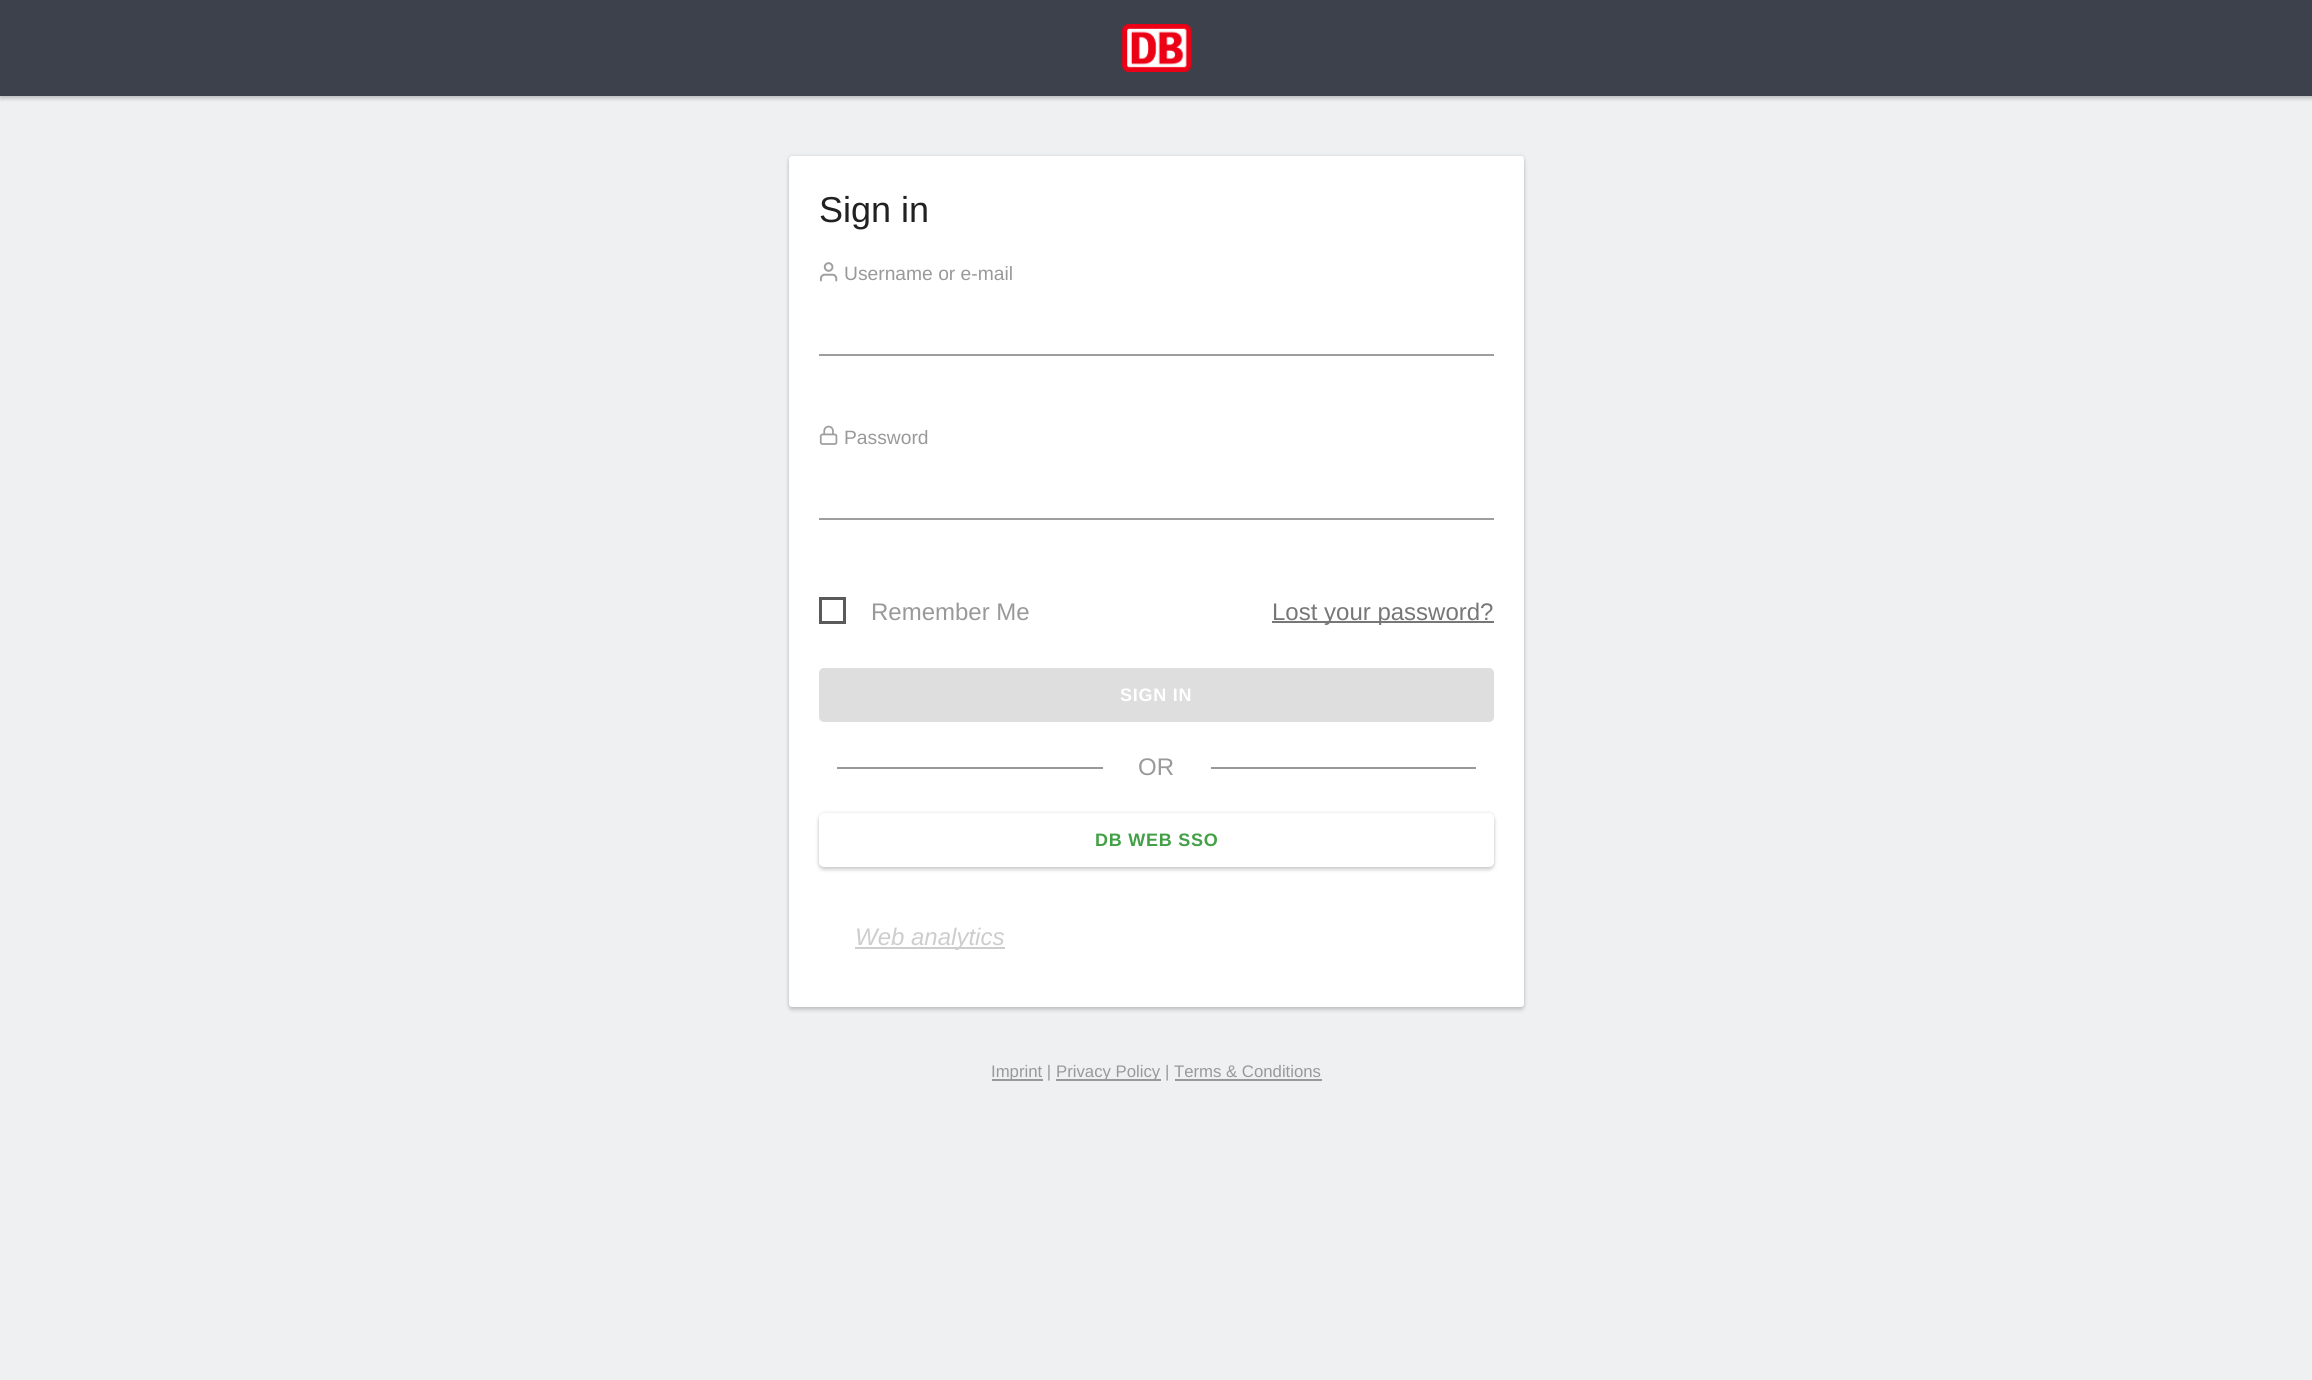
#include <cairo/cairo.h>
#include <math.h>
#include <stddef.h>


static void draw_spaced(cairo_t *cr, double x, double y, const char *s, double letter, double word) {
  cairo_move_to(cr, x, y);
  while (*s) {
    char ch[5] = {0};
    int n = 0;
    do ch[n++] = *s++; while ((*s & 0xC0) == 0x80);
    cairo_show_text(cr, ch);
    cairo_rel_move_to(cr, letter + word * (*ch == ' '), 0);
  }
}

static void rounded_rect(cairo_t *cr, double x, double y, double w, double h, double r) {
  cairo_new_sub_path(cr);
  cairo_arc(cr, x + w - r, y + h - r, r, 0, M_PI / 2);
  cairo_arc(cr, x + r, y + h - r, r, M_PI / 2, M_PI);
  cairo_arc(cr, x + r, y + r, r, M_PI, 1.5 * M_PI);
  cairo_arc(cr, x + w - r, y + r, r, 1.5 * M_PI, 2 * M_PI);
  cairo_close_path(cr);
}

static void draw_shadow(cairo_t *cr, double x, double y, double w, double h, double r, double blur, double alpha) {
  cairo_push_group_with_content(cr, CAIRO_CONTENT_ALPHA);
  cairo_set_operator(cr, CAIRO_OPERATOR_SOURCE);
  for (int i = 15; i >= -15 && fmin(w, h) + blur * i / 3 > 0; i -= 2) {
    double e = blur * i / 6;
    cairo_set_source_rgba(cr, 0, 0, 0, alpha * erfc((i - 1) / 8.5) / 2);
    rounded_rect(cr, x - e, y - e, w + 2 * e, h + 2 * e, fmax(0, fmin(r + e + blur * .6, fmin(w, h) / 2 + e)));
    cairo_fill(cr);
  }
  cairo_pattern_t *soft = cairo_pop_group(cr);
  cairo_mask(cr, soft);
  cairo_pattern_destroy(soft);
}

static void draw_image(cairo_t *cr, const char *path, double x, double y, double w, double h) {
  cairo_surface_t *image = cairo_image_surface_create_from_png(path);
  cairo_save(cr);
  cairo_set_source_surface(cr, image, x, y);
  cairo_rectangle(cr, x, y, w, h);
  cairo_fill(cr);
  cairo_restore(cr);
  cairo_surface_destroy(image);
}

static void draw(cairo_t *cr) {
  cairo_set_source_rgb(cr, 239 / 255.0, 240 / 255.0, 241 / 255.0);
  cairo_paint(cr);
  cairo_set_source_rgb(cr, 0, 0, 0);
  draw_shadow(cr, 0, 0, 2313, 96, 0, 2, 0.12);
  draw_shadow(cr, 0, 3, 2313, 96, 0, 2, 0.16);
  cairo_set_source_rgb(cr, 60 / 255.0, 65 / 255.0, 75 / 255.0);
  cairo_rectangle(cr, 0, 0, 2312, 96);
  cairo_fill(cr);
  draw_image(cr, "images/1.png", 1122, 24, 70, 48);
  cairo_set_source_rgb(cr, 0, 0, 0);
  draw_shadow(cr, 789, 156, 735, 851, 3, 2, 0.12);
  draw_shadow(cr, 789, 159, 735, 851, 3, 2, 0.16);
  cairo_set_source_rgb(cr, 1, 1, 1);
  rounded_rect(cr, 789, 156, 735, 851, 3);
  cairo_fill(cr);
  draw_image(cr, "images/2.png", 819, 262, 19, 20);
  cairo_set_source_rgb(cr, 158 / 255.0, 158 / 255.0, 158 / 255.0);
  cairo_rectangle(cr, 819, 354, 675, 2);
  cairo_fill(cr);
  draw_image(cr, "images/3.png", 819, 425, 19, 20);
  cairo_rectangle(cr, 819, 518, 675, 2);
  cairo_fill(cr);
  cairo_rectangle(cr, 820.5, 598.5, 24, 24);
  cairo_set_source_rgb(cr, 90 / 255.0, 90 / 255.0, 90 / 255.0);
  cairo_set_line_width(cr, 3);
  cairo_stroke(cr);
  cairo_set_source_rgb(cr, 119 / 255.0, 119 / 255.0, 119 / 255.0);
  cairo_rectangle(cr, 1272, 621, 222, 2);
  cairo_fill(cr);
  cairo_set_source_rgb(cr, 222 / 255.0, 222 / 255.0, 222 / 255.0);
  rounded_rect(cr, 819, 668, 675, 54, 5);
  cairo_fill(cr);
  cairo_set_source_rgb(cr, 153 / 255.0, 153 / 255.0, 153 / 255.0);
  cairo_rectangle(cr, 837, 767, 266, 2);
  cairo_fill(cr);
  cairo_rectangle(cr, 1211, 767, 265, 2);
  cairo_fill(cr);
  cairo_set_source_rgb(cr, 0, 0, 0);
  draw_shadow(cr, 819, 813, 675, 54, 5, 2, 0.12);
  draw_shadow(cr, 819, 816, 675, 54, 5, 2, 0.16);
  cairo_set_source_rgb(cr, 1, 1, 1);
  rounded_rect(cr, 819, 813, 675, 54, 5);
  cairo_fill(cr);
  cairo_set_source_rgb(cr, 205 / 255.0, 205 / 255.0, 205 / 255.0);
  cairo_rectangle(cr, 855, 947, 150, 2);
  cairo_fill(cr);
  cairo_set_source_rgb(cr, 153 / 255.0, 153 / 255.0, 153 / 255.0);
  cairo_rectangle(cr, 992, 1079, 51, 2);
  cairo_fill(cr);
  cairo_rectangle(cr, 1056, 1079, 105, 2);
  cairo_fill(cr);
  cairo_rectangle(cr, 1175, 1079, 147, 2);
  cairo_fill(cr);
  cairo_select_font_face(cr, "Liberation Sans", CAIRO_FONT_SLANT_NORMAL, CAIRO_FONT_WEIGHT_NORMAL);
  cairo_set_font_size(cr, 36);
  cairo_set_source_rgb(cr, 33 / 255.0, 33 / 255.0, 33 / 255.0);
  cairo_move_to(cr, 819, 222);
  cairo_show_text(cr, "Sign in");
  cairo_set_font_size(cr, 19.25);
  cairo_set_source_rgb(cr, 153 / 255.0, 153 / 255.0, 153 / 255.0);
  cairo_move_to(cr, 844, 280);
  cairo_show_text(cr, "Username or e-mail");
  cairo_move_to(cr, 844, 444);
  cairo_show_text(cr, "Password");
  cairo_set_font_size(cr, 24);
  cairo_move_to(cr, 871, 620);
  cairo_show_text(cr, "Remember Me");
  cairo_set_source_rgb(cr, 119 / 255.0, 119 / 255.0, 119 / 255.0);
  cairo_move_to(cr, 1272, 620);
  cairo_show_text(cr, "Lost your password?");
  cairo_select_font_face(cr, "Liberation Sans", CAIRO_FONT_SLANT_NORMAL, CAIRO_FONT_WEIGHT_BOLD);
  cairo_set_font_size(cr, 18);
  cairo_set_source_rgb(cr, 1, 1, 1);
  draw_spaced(cr, 1120, 701, "SIGN IN", 0.75, 0);
  cairo_select_font_face(cr, "Liberation Sans", CAIRO_FONT_SLANT_NORMAL, CAIRO_FONT_WEIGHT_NORMAL);
  cairo_set_font_size(cr, 24);
  cairo_set_source_rgb(cr, 153 / 255.0, 153 / 255.0, 153 / 255.0);
  cairo_move_to(cr, 1138, 775);
  cairo_show_text(cr, "OR");
  cairo_select_font_face(cr, "Liberation Sans", CAIRO_FONT_SLANT_NORMAL, CAIRO_FONT_WEIGHT_BOLD);
  cairo_set_font_size(cr, 18);
  cairo_set_source_rgb(cr, 67 / 255.0, 160 / 255.0, 71 / 255.0);
  draw_spaced(cr, 1095, 846, "DB WEB SSO", 0.75, 0);
  cairo_select_font_face(cr, "Liberation Sans", CAIRO_FONT_SLANT_ITALIC, CAIRO_FONT_WEIGHT_NORMAL);
  cairo_set_font_size(cr, 24);
  cairo_set_source_rgb(cr, 205 / 255.0, 205 / 255.0, 205 / 255.0);
  cairo_move_to(cr, 855, 945);
  cairo_show_text(cr, "Web analytics");
  cairo_select_font_face(cr, "Liberation Sans", CAIRO_FONT_SLANT_NORMAL, CAIRO_FONT_WEIGHT_NORMAL);
  cairo_set_font_size(cr, 16.75);
  cairo_set_source_rgb(cr, 153 / 255.0, 153 / 255.0, 153 / 255.0);
  cairo_move_to(cr, 991, 1077);
  cairo_show_text(cr, "Imprint |");
  cairo_move_to(cr, 1056, 1077);
  cairo_show_text(cr, "Privacy Policy | Terms & Conditions");
}

int main(void) {
  cairo_surface_t *surface = cairo_image_surface_create(CAIRO_FORMAT_RGB24, 2312, 1380);
  cairo_t *cr = cairo_create(surface);
  cairo_font_options_t *options = cairo_font_options_create();
  cairo_font_options_set_hint_metrics(options, CAIRO_HINT_METRICS_OFF);
  cairo_font_options_set_hint_style(options, CAIRO_HINT_STYLE_NONE);
  cairo_set_font_options(cr, options);
  cairo_set_miter_limit(cr, 4);
  draw(cr);
  cairo_surface_write_to_png(surface, "out.png");
  cairo_font_options_destroy(options);
  cairo_destroy(cr);
  cairo_surface_destroy(surface);
  return 0;
}
